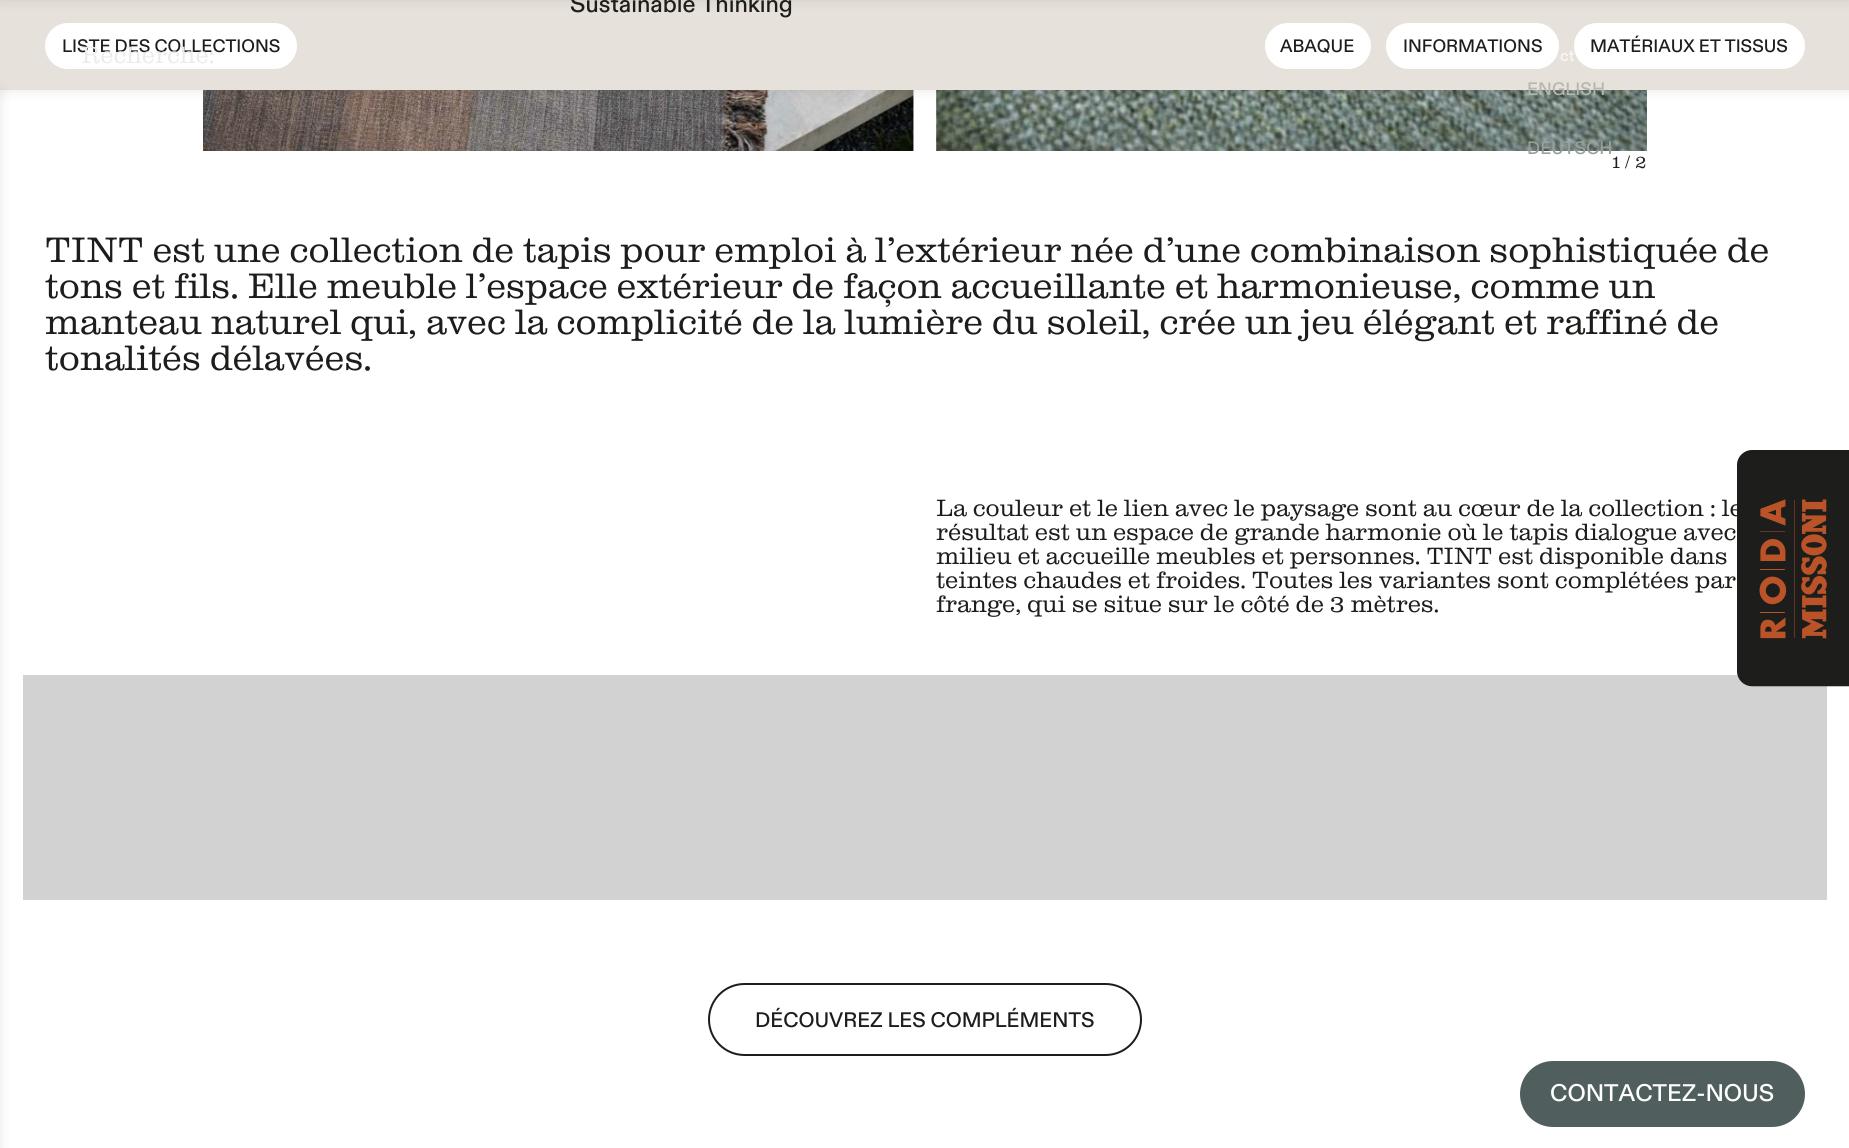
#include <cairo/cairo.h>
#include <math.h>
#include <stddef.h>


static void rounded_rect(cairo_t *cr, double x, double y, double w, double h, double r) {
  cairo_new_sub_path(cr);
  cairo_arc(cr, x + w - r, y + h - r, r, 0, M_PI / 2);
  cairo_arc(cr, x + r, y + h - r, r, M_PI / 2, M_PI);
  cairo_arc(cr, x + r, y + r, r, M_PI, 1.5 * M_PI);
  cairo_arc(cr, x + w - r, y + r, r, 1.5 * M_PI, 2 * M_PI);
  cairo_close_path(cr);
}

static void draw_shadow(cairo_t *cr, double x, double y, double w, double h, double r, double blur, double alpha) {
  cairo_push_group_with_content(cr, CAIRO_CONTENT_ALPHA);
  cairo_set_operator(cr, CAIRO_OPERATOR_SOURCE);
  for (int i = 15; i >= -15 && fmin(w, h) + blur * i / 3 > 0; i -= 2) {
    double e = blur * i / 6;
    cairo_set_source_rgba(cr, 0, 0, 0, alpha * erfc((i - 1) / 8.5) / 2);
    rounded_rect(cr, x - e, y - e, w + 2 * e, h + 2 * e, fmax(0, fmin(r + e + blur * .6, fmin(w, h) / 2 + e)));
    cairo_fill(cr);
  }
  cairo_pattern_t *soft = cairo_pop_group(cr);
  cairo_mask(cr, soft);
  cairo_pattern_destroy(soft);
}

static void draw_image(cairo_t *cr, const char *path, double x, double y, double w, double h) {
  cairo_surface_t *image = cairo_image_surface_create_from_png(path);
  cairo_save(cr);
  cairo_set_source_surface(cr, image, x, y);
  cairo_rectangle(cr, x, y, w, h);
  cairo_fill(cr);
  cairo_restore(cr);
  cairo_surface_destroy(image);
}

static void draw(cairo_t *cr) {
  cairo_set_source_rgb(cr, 1, 1, 1);
  cairo_paint(cr);
  draw_image(cr, "images/1.png", 203, 90, 711, 61);
  draw_image(cr, "images/2.png", 936, 90, 711, 61);
  cairo_set_source_rgb(cr, 0, 0, 0);
  draw_shadow(cr, 0, 0, 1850, 90, 0, 6, 0.1);
  cairo_set_source_rgb(cr, 230 / 255.0, 225 / 255.0, 218 / 255.0);
  cairo_rectangle(cr, 0, 0, 1849, 90);
  cairo_fill(cr);
  cairo_set_source_rgb(cr, 0, 0, 0);
  draw_shadow(cr, 0, -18, 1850, 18, 0, 6, 0.1);
  cairo_set_source_rgb(cr, 1, 1, 1);
  rounded_rect(cr, 46, 24, 250, 44, 22);
  cairo_fill_preserve(cr);
  cairo_stroke(cr);
  rounded_rect(cr, 1266, 24, 104, 44, 22);
  cairo_fill_preserve(cr);
  cairo_stroke(cr);
  rounded_rect(cr, 1387, 24, 171, 44, 22);
  cairo_fill_preserve(cr);
  cairo_stroke(cr);
  rounded_rect(cr, 1575, 24, 229, 44, 22);
  cairo_fill_preserve(cr);
  cairo_stroke(cr);
  cairo_set_source_rgb(cr, 0, 0, 0);
  draw_shadow(cr, -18, 90, 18, 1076, 0, 6, 0.1);
  cairo_set_source_rgb(cr, 210 / 255.0, 210 / 255.0, 210 / 255.0);
  cairo_rectangle(cr, 23, 675, 1804, 225);
  cairo_fill(cr);
  rounded_rect(cr, 709, 984, 432, 71, 35.5);
  cairo_set_source_rgb(cr, 29 / 255.0, 29 / 255.0, 27 / 255.0);
  cairo_stroke(cr);
  cairo_set_source_rgb(cr, 80 / 255.0, 94 / 255.0, 94 / 255.0);
  rounded_rect(cr, 1520, 1061, 285, 66, 33);
  cairo_fill(cr);
  cairo_select_font_face(cr, "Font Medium", CAIRO_FONT_SLANT_NORMAL, CAIRO_FONT_WEIGHT_NORMAL);
  cairo_set_font_size(cr, 24);
  cairo_set_source_rgb(cr, 29 / 255.0, 29 / 255.0, 27 / 255.0);
  cairo_move_to(cr, 570, 12);
  cairo_show_text(cr, "Sustainable Thinking");
  cairo_set_font_size(cr, 16);
  cairo_set_source_rgb(cr, 248 / 255.0, 248 / 255.0, 247 / 255.0);
  cairo_move_to(cr, 1560, 61);
  cairo_show_text(cr, "ct");
  cairo_set_font_size(cr, 18);
  cairo_set_source_rgb(cr, 180 / 255.0, 183 / 255.0, 175 / 255.0);
  cairo_move_to(cr, 1527, 95);
  cairo_show_text(cr, "ENGLISH");
  cairo_set_source_rgb(cr, 151 / 255.0, 160 / 255.0, 156 / 255.0);
  cairo_move_to(cr, 1527, 154);
  cairo_show_text(cr, "DEUTSCH");
  cairo_set_source_rgb(cr, 29 / 255.0, 29 / 255.0, 27 / 255.0);
  cairo_move_to(cr, 62, 52);
  cairo_show_text(cr, "LISTE DES COLLECTIONS");
  cairo_select_font_face(cr, "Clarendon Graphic", CAIRO_FONT_SLANT_NORMAL, CAIRO_FONT_WEIGHT_NORMAL);
  cairo_set_font_size(cr, 24);
  cairo_set_source_rgb(cr, 235 / 255.0, 235 / 255.0, 235 / 255.0);
  cairo_move_to(cr, 81, 63);
  cairo_show_text(cr, "Recherche:");
  cairo_select_font_face(cr, "Font Medium", CAIRO_FONT_SLANT_NORMAL, CAIRO_FONT_WEIGHT_NORMAL);
  cairo_set_font_size(cr, 18);
  cairo_set_source_rgb(cr, 29 / 255.0, 29 / 255.0, 27 / 255.0);
  cairo_move_to(cr, 1280, 52);
  cairo_show_text(cr, "ABAQUE");
  cairo_move_to(cr, 1403, 52);
  cairo_show_text(cr, "INFORMATIONS");
  cairo_move_to(cr, 1590, 52);
  cairo_show_text(cr, "MATÉRIAUX ET TISSUS");
  cairo_set_source_rgb(cr, 1, 1, 1);
  cairo_new_path(cr);
  cairo_move_to(cr, 1772.5, 65.5);
  cairo_line_to(cr, 1793.5, 44);
  cairo_line_to(cr, 1794.5, 45);
  cairo_line_to(cr, 1773.5, 66.5);
  cairo_close_path(cr);
  cairo_fill(cr);
  cairo_select_font_face(cr, "Clarendon Graphic", CAIRO_FONT_SLANT_NORMAL, CAIRO_FONT_WEIGHT_NORMAL);
  cairo_set_source_rgb(cr, 29 / 255.0, 29 / 255.0, 27 / 255.0);
  cairo_move_to(cr, 1612, 168);
  cairo_show_text(cr, "1 / 2");
  cairo_set_font_size(cr, 36);
  cairo_move_to(cr, 45, 262);
  cairo_show_text(cr, "TINT est une collection de tapis pour emploi à l’extérieur née d’une combinaison sophistiquée de");
  cairo_move_to(cr, 45, 298);
  cairo_show_text(cr, "tons et fils. Elle meuble l’espace extérieur de façon accueillante et harmonieuse, comme un");
  cairo_move_to(cr, 45, 334);
  cairo_show_text(cr, "manteau naturel qui, avec la complicité de la lumière du soleil, crée un jeu élégant et raffiné de");
  cairo_move_to(cr, 45, 370);
  cairo_show_text(cr, "tonalités délavées.");
  cairo_set_font_size(cr, 24);
  cairo_move_to(cr, 936, 516);
  cairo_show_text(cr, "La couleur et le lien avec le paysage sont au cœur de la collection : le");
  cairo_move_to(cr, 936, 540);
  cairo_show_text(cr, "résultat est un espace de grande harmonie où le tapis dialogue avec");
  cairo_move_to(cr, 936, 564);
  cairo_show_text(cr, "milieu et accueille meubles et personnes. TINT est disponible dans");
  cairo_move_to(cr, 936, 588);
  cairo_show_text(cr, "teintes chaudes et froides. Toutes les variantes sont complétées par");
  cairo_move_to(cr, 936, 612);
  cairo_show_text(cr, "frange, qui se situe sur le côté de 3 mètres.");
  cairo_select_font_face(cr, "Font Medium", CAIRO_FONT_SLANT_NORMAL, CAIRO_FONT_WEIGHT_NORMAL);
  cairo_set_font_size(cr, 21);
  cairo_move_to(cr, 755, 1027);
  cairo_show_text(cr, "DÉCOUVREZ LES COMPLÉMENTS");
  draw_image(cr, "images/3.png", 1737, 450, 112, 237);
  cairo_set_font_size(cr, 24);
  cairo_set_source_rgb(cr, 1, 1, 1);
  cairo_move_to(cr, 1550, 1101);
  cairo_show_text(cr, "CONTACTEZ-NOUS");
}

int main(void) {
  cairo_surface_t *surface = cairo_image_surface_create(CAIRO_FORMAT_RGB24, 1849, 1148);
  cairo_t *cr = cairo_create(surface);
  cairo_font_options_t *options = cairo_font_options_create();
  cairo_font_options_set_hint_metrics(options, CAIRO_HINT_METRICS_OFF);
  cairo_font_options_set_hint_style(options, CAIRO_HINT_STYLE_NONE);
  cairo_set_font_options(cr, options);
  cairo_set_miter_limit(cr, 4);
  draw(cr);
  cairo_surface_write_to_png(surface, "out.png");
  cairo_font_options_destroy(options);
  cairo_destroy(cr);
  cairo_surface_destroy(surface);
  return 0;
}
